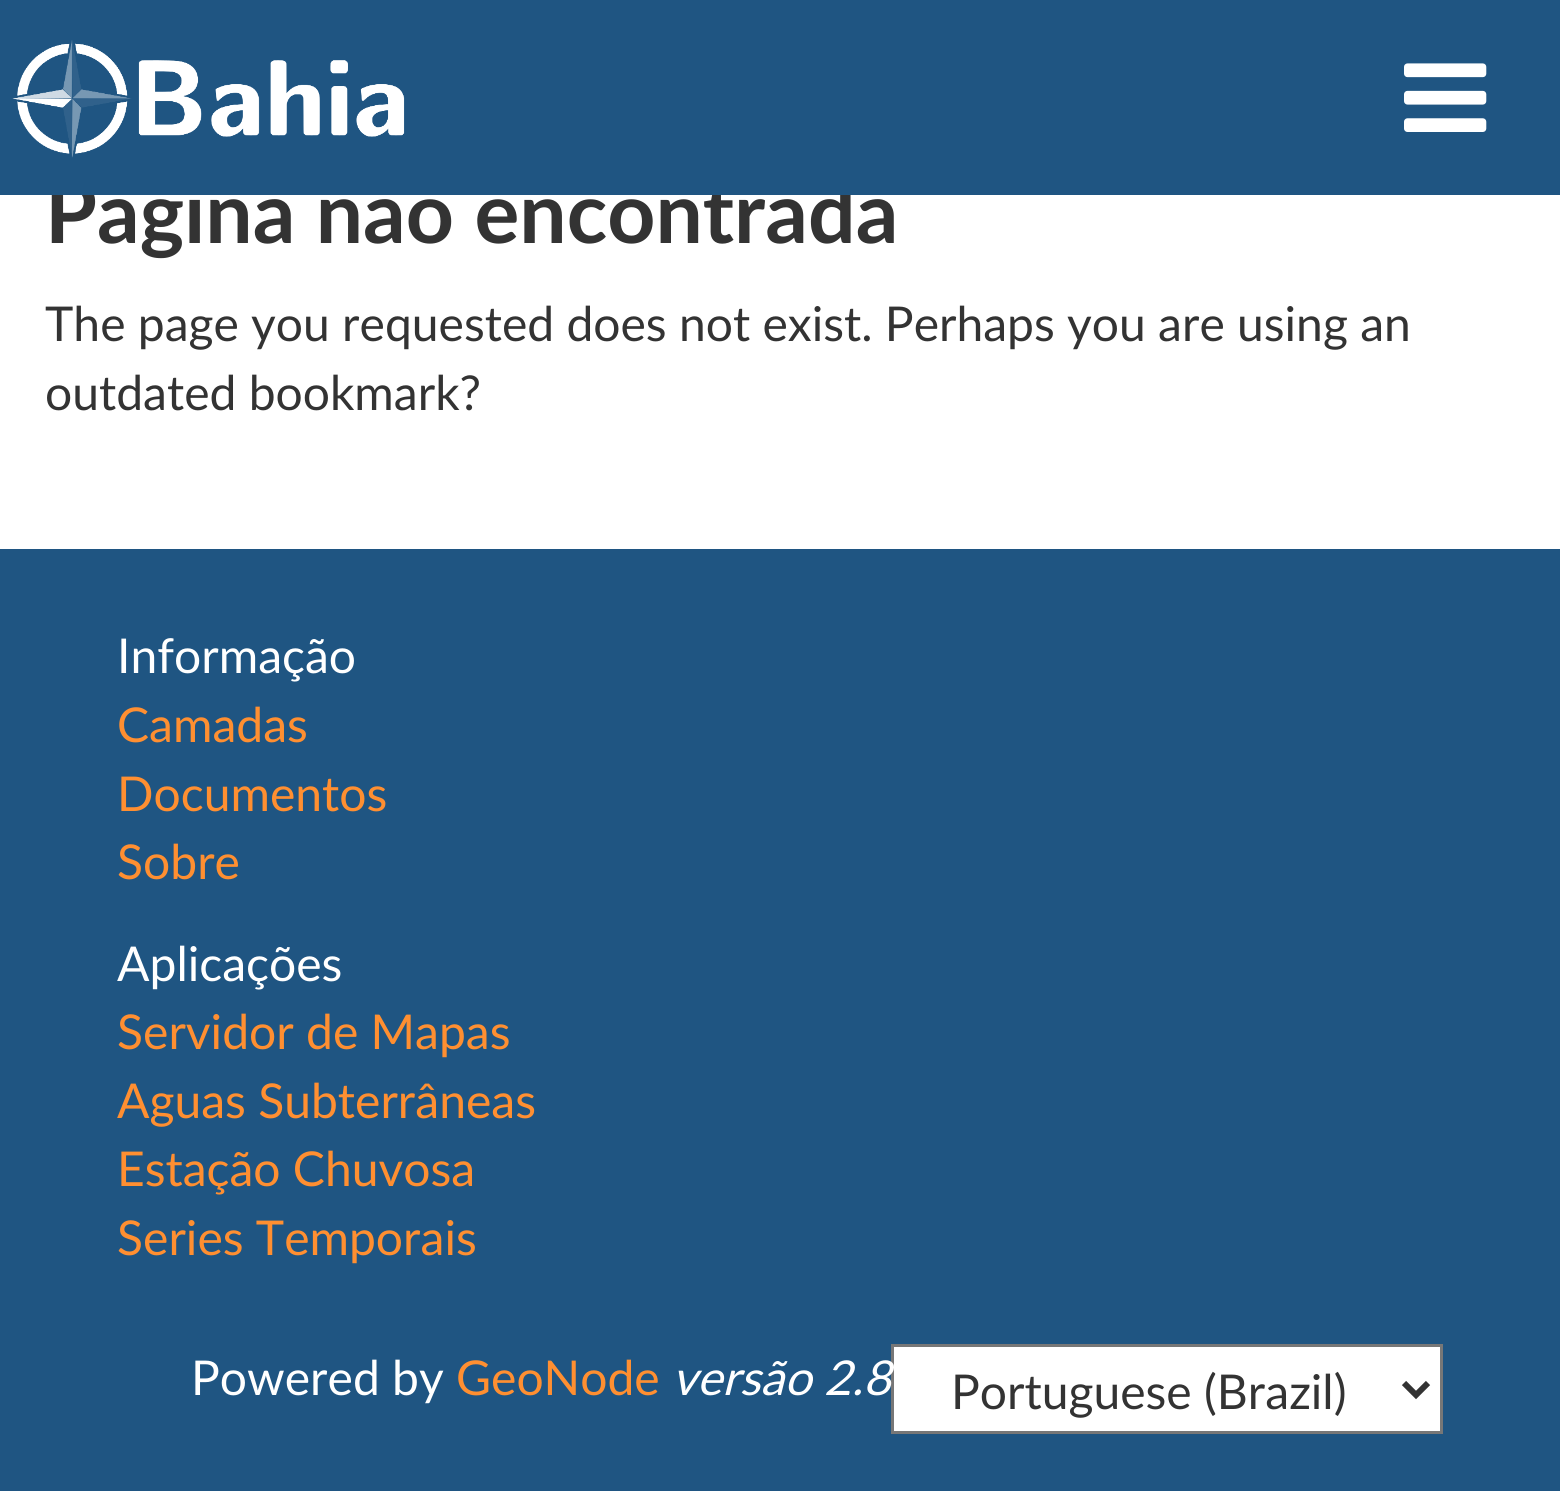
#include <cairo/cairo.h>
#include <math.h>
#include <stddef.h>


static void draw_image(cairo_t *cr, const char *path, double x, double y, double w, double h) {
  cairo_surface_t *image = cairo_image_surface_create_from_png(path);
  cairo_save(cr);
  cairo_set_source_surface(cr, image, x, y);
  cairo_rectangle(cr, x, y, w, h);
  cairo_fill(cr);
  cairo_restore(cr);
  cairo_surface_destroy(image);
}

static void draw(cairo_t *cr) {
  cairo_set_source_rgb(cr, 1, 1, 1);
  cairo_paint(cr);
  cairo_set_source_rgb(cr, 31 / 255.0, 85 / 255.0, 130 / 255.0);
  cairo_rectangle(cr, 0, 549, 1560, 942);
  cairo_fill(cr);
  cairo_set_source_rgb(cr, 1, 1, 1);
  cairo_rectangle(cr, 892.5, 1345.5, 549, 87);
  cairo_fill_preserve(cr);
  cairo_set_source_rgb(cr, 119 / 255.0, 119 / 255.0, 119 / 255.0);
  cairo_set_line_width(cr, 3);
  cairo_stroke(cr);
  cairo_new_path(cr);
  cairo_move_to(cr, 1404, 1383);
  cairo_line_to(cr, 1416, 1395);
  cairo_line_to(cr, 1428, 1383);
  cairo_set_source_rgb(cr, 51 / 255.0, 51 / 255.0, 51 / 255.0);
  cairo_set_line_width(cr, 6);
  cairo_stroke(cr);
  cairo_select_font_face(cr, "Lato", CAIRO_FONT_SLANT_NORMAL, CAIRO_FONT_WEIGHT_BOLD);
  cairo_set_font_size(cr, 84);
  cairo_move_to(cr, 45, 243);
  cairo_show_text(cr, "Página não encontrada");
  cairo_set_source_rgb(cr, 31 / 255.0, 85 / 255.0, 130 / 255.0);
  cairo_rectangle(cr, 0, 0, 1560, 195);
  cairo_fill(cr);
  draw_image(cr, "images/2.png", 1404, 63, 83, 69);
  draw_image(cr, "images/1.png", 12, 40, 393, 118);
  cairo_select_font_face(cr, "Lato", CAIRO_FONT_SLANT_NORMAL, CAIRO_FONT_WEIGHT_NORMAL);
  cairo_set_font_size(cr, 48);
  cairo_set_source_rgb(cr, 51 / 255.0, 51 / 255.0, 51 / 255.0);
  cairo_move_to(cr, 45, 341);
  cairo_show_text(cr, "The page you requested does not exist. Perhaps you are using an");
  cairo_move_to(cr, 45, 410);
  cairo_show_text(cr, "outdated bookmark?");
  cairo_set_source_rgb(cr, 1, 1, 1);
  cairo_move_to(cr, 117, 673);
  cairo_show_text(cr, "Informação");
  cairo_set_source_rgb(cr, 1, 143 / 255.0, 49 / 255.0);
  cairo_move_to(cr, 117, 742);
  cairo_show_text(cr, "Camadas");
  cairo_move_to(cr, 117, 811);
  cairo_show_text(cr, "Documentos");
  cairo_move_to(cr, 117, 879);
  cairo_show_text(cr, "Sobre");
  cairo_set_source_rgb(cr, 1, 1, 1);
  cairo_move_to(cr, 117, 981);
  cairo_show_text(cr, "Aplicações");
  cairo_set_source_rgb(cr, 1, 143 / 255.0, 49 / 255.0);
  cairo_move_to(cr, 117, 1049);
  cairo_show_text(cr, "Servidor de Mapas");
  cairo_move_to(cr, 117, 1118);
  cairo_show_text(cr, "Aguas Subterrâneas");
  cairo_move_to(cr, 117, 1186);
  cairo_show_text(cr, "Estação Chuvosa");
  cairo_move_to(cr, 117, 1255);
  cairo_show_text(cr, "Series Temporais");
  cairo_set_source_rgb(cr, 1, 1, 1);
  cairo_move_to(cr, 191, 1395);
  cairo_show_text(cr, "Powered by");
  cairo_set_source_rgb(cr, 1, 143 / 255.0, 49 / 255.0);
  cairo_move_to(cr, 456, 1395);
  cairo_show_text(cr, "GeoNode");
  cairo_select_font_face(cr, "Lato", CAIRO_FONT_SLANT_ITALIC, CAIRO_FONT_WEIGHT_NORMAL);
  cairo_set_source_rgb(cr, 1, 1, 1);
  cairo_move_to(cr, 672, 1395);
  cairo_show_text(cr, "versão 2.8");
  cairo_select_font_face(cr, "Lato", CAIRO_FONT_SLANT_NORMAL, CAIRO_FONT_WEIGHT_NORMAL);
  cairo_set_source_rgb(cr, 51 / 255.0, 51 / 255.0, 51 / 255.0);
  cairo_move_to(cr, 951, 1409);
  cairo_show_text(cr, "Portuguese (Brazil)");
}

int main(void) {
  cairo_surface_t *surface = cairo_image_surface_create(CAIRO_FORMAT_RGB24, 1560, 1491);
  cairo_t *cr = cairo_create(surface);
  cairo_font_options_t *options = cairo_font_options_create();
  cairo_font_options_set_hint_metrics(options, CAIRO_HINT_METRICS_OFF);
  cairo_font_options_set_hint_style(options, CAIRO_HINT_STYLE_NONE);
  cairo_set_font_options(cr, options);
  cairo_set_miter_limit(cr, 4);
  draw(cr);
  cairo_surface_write_to_png(surface, "out.png");
  cairo_font_options_destroy(options);
  cairo_destroy(cr);
  cairo_surface_destroy(surface);
  return 0;
}
